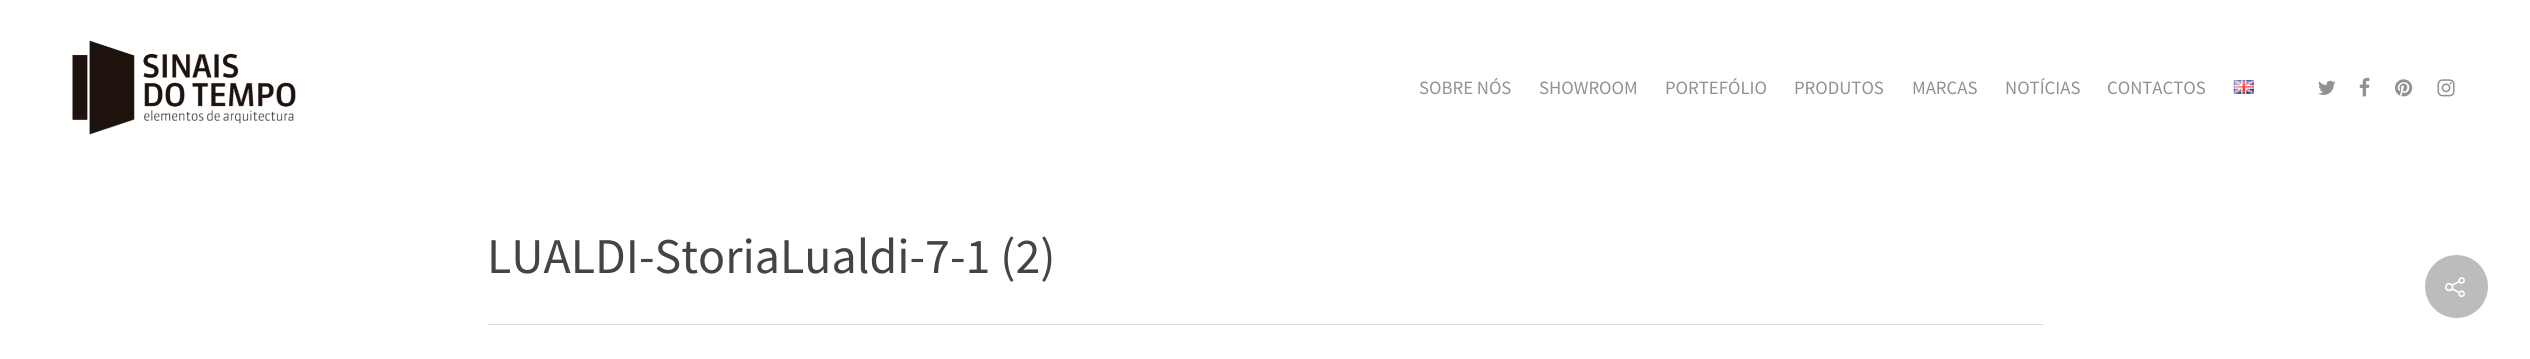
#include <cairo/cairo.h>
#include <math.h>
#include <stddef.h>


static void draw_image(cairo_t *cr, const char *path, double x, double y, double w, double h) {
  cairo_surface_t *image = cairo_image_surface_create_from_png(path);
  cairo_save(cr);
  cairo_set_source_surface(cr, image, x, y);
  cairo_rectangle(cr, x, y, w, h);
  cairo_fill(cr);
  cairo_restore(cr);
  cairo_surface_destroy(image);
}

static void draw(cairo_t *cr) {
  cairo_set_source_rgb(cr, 1, 1, 1);
  cairo_paint(cr);
  draw_image(cr, "images/1.png", 72, 40, 224, 95);
  draw_image(cr, "images/2.png", 2233, 80, 21, 14);
  draw_image(cr, "images/3.png", 2318, 80, 18, 15);
  draw_image(cr, "images/4.png", 2359, 77, 11, 20);
  draw_image(cr, "images/5.png", 2395, 79, 18, 18);
  draw_image(cr, "images/6.png", 2437, 79, 18, 18);
  cairo_set_source_rgb(cr, 221 / 255.0, 221 / 255.0, 221 / 255.0);
  cairo_rectangle(cr, 488, 324, 1556, 1);
  cairo_fill(cr);
  cairo_set_source_rgb(cr, 188 / 255.0, 188 / 255.0, 188 / 255.0);
  cairo_arc(cr, 2456.5, 286.5, 31.5, 0, 2 * M_PI);
  cairo_fill(cr);
  draw_image(cr, "images/7.png", 2445, 277, 20, 20);
  cairo_select_font_face(cr, "Source Sans Pro", CAIRO_FONT_SLANT_NORMAL, CAIRO_FONT_WEIGHT_NORMAL);
  cairo_set_font_size(cr, 18.75);
  cairo_set_source_rgb(cr, 145 / 255.0, 145 / 255.0, 145 / 255.0);
  cairo_move_to(cr, 1419, 94);
  cairo_show_text(cr, "SOBRE NÓS");
  cairo_move_to(cr, 1539, 94);
  cairo_show_text(cr, "SHOWROOM");
  cairo_move_to(cr, 1665, 94);
  cairo_show_text(cr, "PORTEFÓLIO");
  cairo_move_to(cr, 1794, 94);
  cairo_show_text(cr, "PRODUTOS");
  cairo_move_to(cr, 1912, 94);
  cairo_show_text(cr, "MARCAS");
  cairo_move_to(cr, 2005, 94);
  cairo_show_text(cr, "NOTÍCIAS");
  cairo_move_to(cr, 2107, 94);
  cairo_show_text(cr, "CONTACTOS");
  cairo_set_font_size(cr, 50);
  cairo_set_source_rgb(cr, 68 / 255.0, 68 / 255.0, 68 / 255.0);
  cairo_move_to(cr, 487, 273);
  cairo_show_text(cr, "LUALDI-StoriaLualdi-7-1 (2)");
}

int main(void) {
  cairo_surface_t *surface = cairo_image_surface_create(CAIRO_FORMAT_RGB24, 2530, 359);
  cairo_t *cr = cairo_create(surface);
  cairo_font_options_t *options = cairo_font_options_create();
  cairo_font_options_set_hint_metrics(options, CAIRO_HINT_METRICS_OFF);
  cairo_font_options_set_hint_style(options, CAIRO_HINT_STYLE_NONE);
  cairo_set_font_options(cr, options);
  cairo_set_miter_limit(cr, 4);
  draw(cr);
  cairo_surface_write_to_png(surface, "out.png");
  cairo_font_options_destroy(options);
  cairo_destroy(cr);
  cairo_surface_destroy(surface);
  return 0;
}
